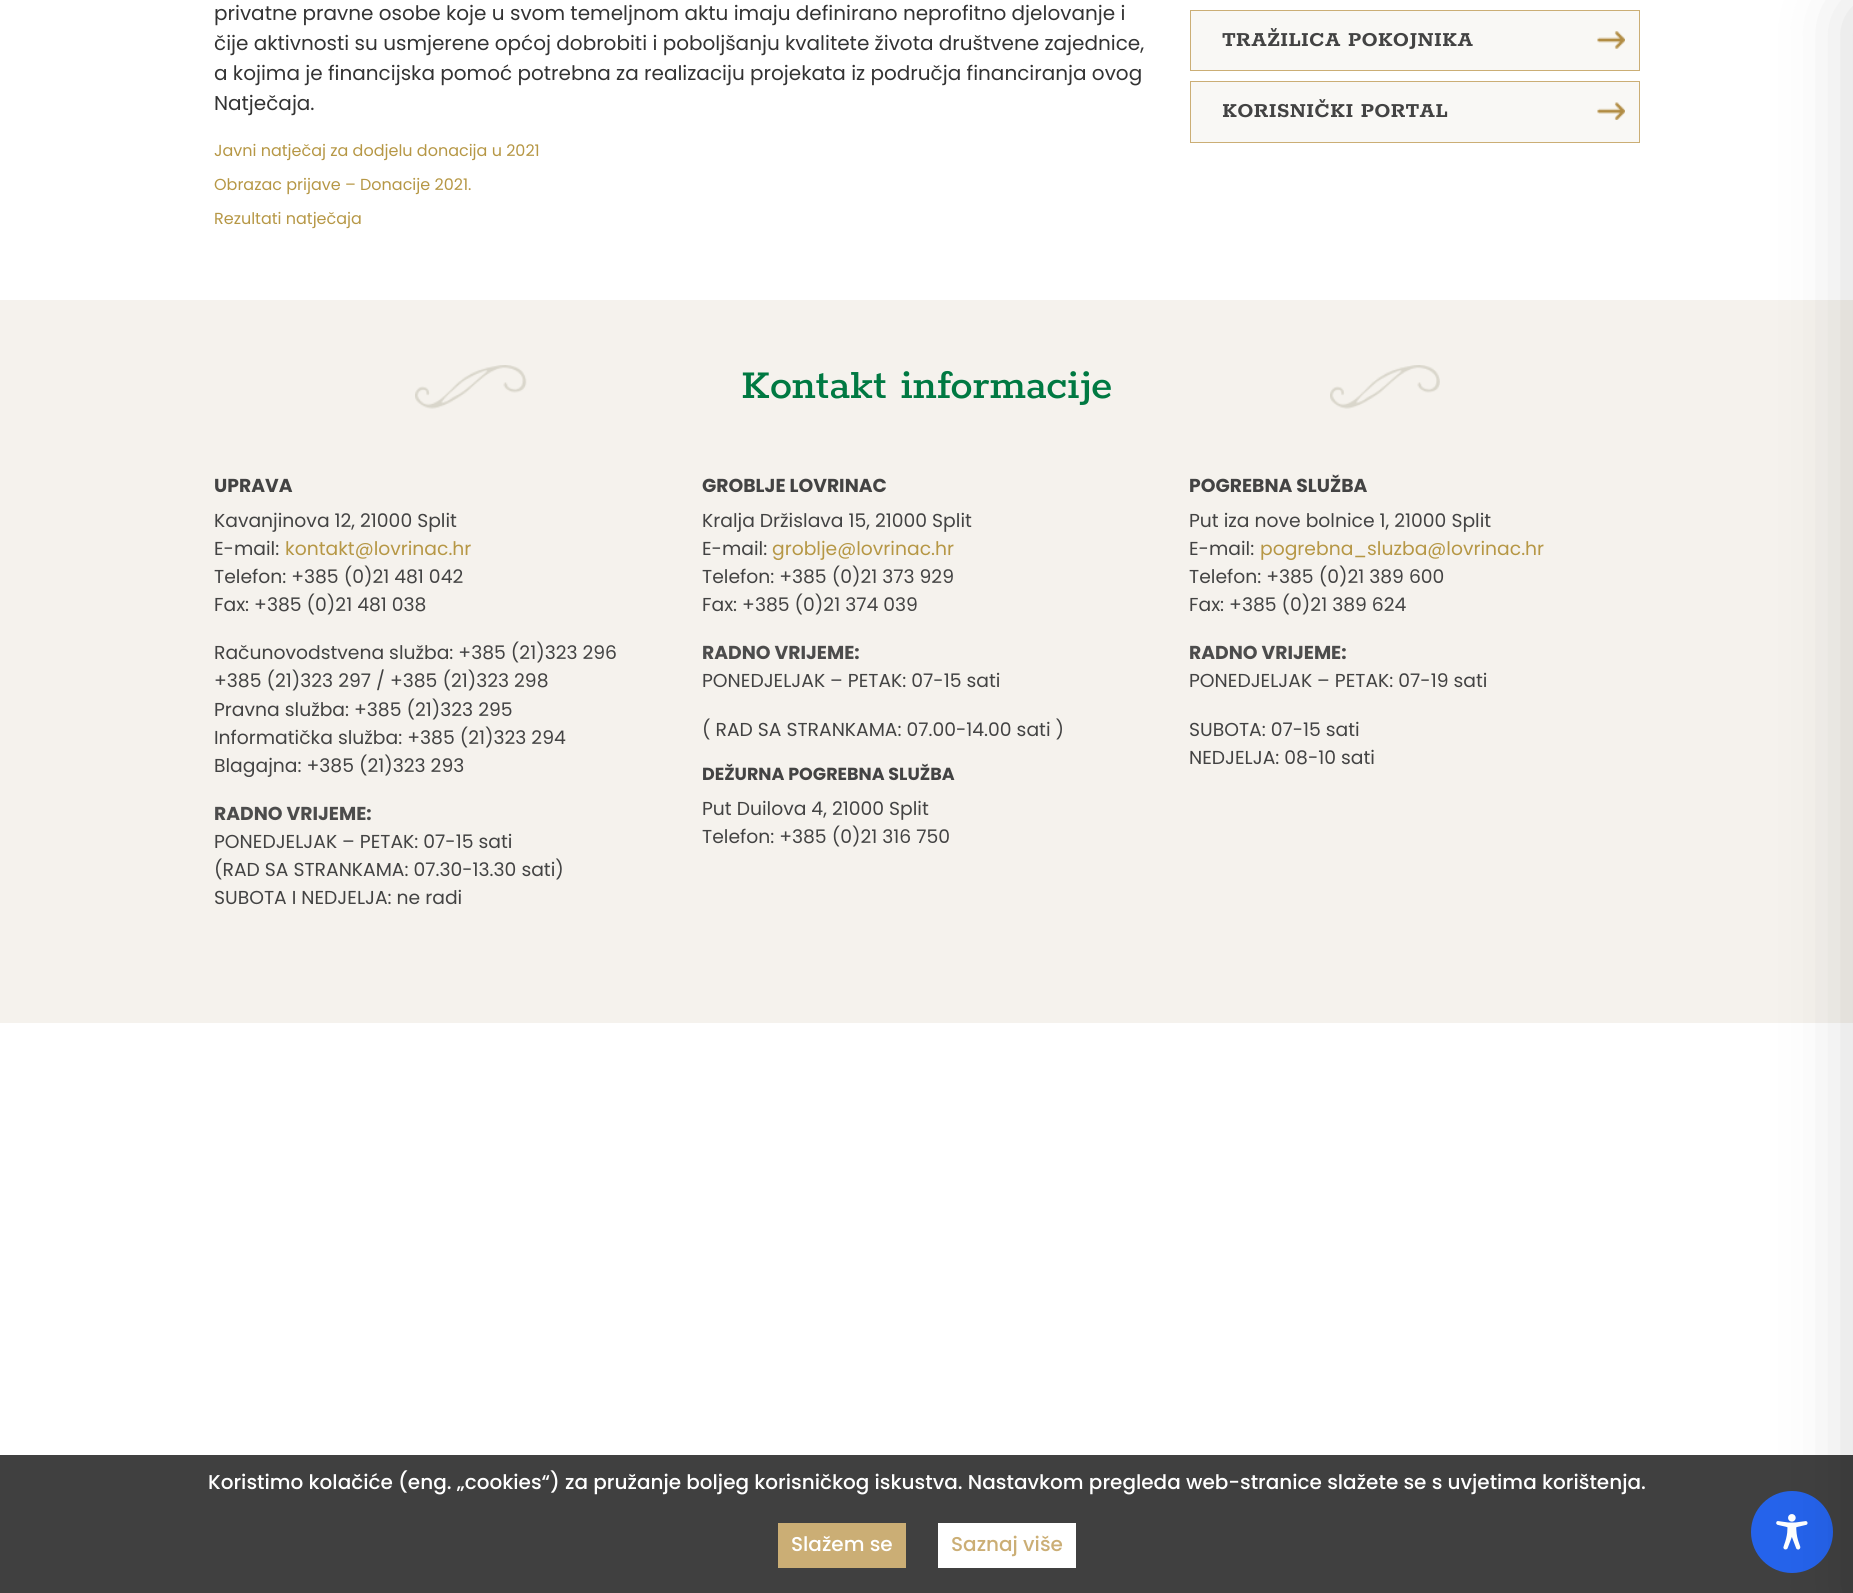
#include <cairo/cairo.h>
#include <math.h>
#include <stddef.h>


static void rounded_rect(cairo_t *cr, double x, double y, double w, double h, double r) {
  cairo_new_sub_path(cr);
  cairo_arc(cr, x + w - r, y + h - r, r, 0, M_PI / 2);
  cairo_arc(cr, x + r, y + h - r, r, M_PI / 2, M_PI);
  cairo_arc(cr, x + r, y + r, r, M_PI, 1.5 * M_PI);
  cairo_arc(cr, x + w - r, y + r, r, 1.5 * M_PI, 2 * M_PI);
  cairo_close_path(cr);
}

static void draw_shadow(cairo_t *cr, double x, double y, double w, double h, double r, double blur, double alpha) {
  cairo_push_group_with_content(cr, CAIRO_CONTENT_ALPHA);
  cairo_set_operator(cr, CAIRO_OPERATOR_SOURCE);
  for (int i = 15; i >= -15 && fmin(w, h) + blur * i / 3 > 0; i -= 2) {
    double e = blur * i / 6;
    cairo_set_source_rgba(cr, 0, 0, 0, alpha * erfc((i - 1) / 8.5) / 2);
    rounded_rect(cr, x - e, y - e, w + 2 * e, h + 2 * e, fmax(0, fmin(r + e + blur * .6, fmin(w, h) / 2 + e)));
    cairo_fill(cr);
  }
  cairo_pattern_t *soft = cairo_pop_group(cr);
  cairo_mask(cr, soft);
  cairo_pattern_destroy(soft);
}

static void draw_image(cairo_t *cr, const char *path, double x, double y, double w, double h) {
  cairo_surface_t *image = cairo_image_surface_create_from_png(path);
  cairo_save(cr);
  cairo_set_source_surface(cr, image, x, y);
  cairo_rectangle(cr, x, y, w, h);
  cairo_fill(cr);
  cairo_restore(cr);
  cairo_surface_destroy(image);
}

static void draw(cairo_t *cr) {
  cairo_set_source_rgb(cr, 1, 1, 1);
  cairo_paint(cr);
  cairo_set_source_rgb(cr, 249 / 255.0, 248 / 255.0, 245 / 255.0);
  cairo_rectangle(cr, 1191, 11, 448, 59);
  cairo_fill(cr);
  draw_image(cr, "images/1.png", 1597, 31, 28, 18);
  cairo_rectangle(cr, 1190.5, 10.5, 449, 60);
  cairo_set_source_rgb(cr, 203 / 255.0, 174 / 255.0, 117 / 255.0);
  cairo_set_line_width(cr, 1);
  cairo_stroke(cr);
  cairo_set_source_rgb(cr, 249 / 255.0, 248 / 255.0, 245 / 255.0);
  cairo_rectangle(cr, 1191, 82, 448, 60);
  cairo_fill(cr);
  draw_image(cr, "images/2.png", 1597, 102, 28, 18);
  cairo_rectangle(cr, 1190.5, 81.5, 449, 61);
  cairo_set_source_rgb(cr, 203 / 255.0, 174 / 255.0, 117 / 255.0);
  cairo_stroke(cr);
  cairo_set_source_rgb(cr, 245 / 255.0, 242 / 255.0, 237 / 255.0);
  cairo_rectangle(cr, 0, 300, 1853, 723);
  cairo_fill(cr);
  cairo_set_source_rgb(cr, 64 / 255.0, 64 / 255.0, 64 / 255.0);
  cairo_rectangle(cr, 0, 1455, 1853, 138);
  cairo_fill(cr);
  cairo_set_source_rgb(cr, 37 / 255.0, 99 / 255.0, 235 / 255.0);
  cairo_arc(cr, 1792, 1532, 41, 0, 2 * M_PI);
  cairo_fill(cr);
  draw_image(cr, "images/4.png", 1776, 1514, 32, 36);
  cairo_set_source_rgb(cr, 0, 0, 0);
  draw_shadow(cr, 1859, 13, 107, 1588, 0, 37.5, 0.2);
  draw_image(cr, "images/3.png", 415, 365, 1025, 44);
  cairo_set_source_rgb(cr, 203 / 255.0, 174 / 255.0, 117 / 255.0);
  cairo_rectangle(cr, 778, 1523, 128, 45);
  cairo_fill(cr);
  cairo_set_source_rgb(cr, 1, 1, 1);
  cairo_rectangle(cr, 938, 1523, 138, 45);
  cairo_fill(cr);
  cairo_select_font_face(cr, "Poppins", CAIRO_FONT_SLANT_NORMAL, CAIRO_FONT_WEIGHT_NORMAL);
  cairo_set_font_size(cr, 20);
  cairo_set_source_rgb(cr, 51 / 255.0, 51 / 255.0, 51 / 255.0);
  cairo_move_to(cr, 214, 20);
  cairo_show_text(cr, "privatne pravne osobe koje u svom temeljnom aktu imaju definirano neprofitno djelovanje i");
  cairo_move_to(cr, 214, 50);
  cairo_show_text(cr, "čije aktivnosti su usmjerene općoj dobrobiti i poboljšanju kvalitete života društvene zajednice,");
  cairo_move_to(cr, 214, 80);
  cairo_show_text(cr, "a kojima je financijska pomoć potrebna za realizaciju projekata iz područja financiranja ovog");
  cairo_move_to(cr, 214, 110);
  cairo_show_text(cr, "Natječaja.");
  cairo_set_font_size(cr, 16);
  cairo_set_source_rgb(cr, 182 / 255.0, 151 / 255.0, 69 / 255.0);
  cairo_move_to(cr, 214, 156);
  cairo_show_text(cr, "Javni natječaj za dodjelu donacija u 2021");
  cairo_move_to(cr, 214, 190);
  cairo_show_text(cr, "Obrazac prijave – Donacije 2021.");
  cairo_move_to(cr, 214, 224);
  cairo_show_text(cr, "Rezultati natječaja");
  cairo_select_font_face(cr, "Rokkitt", CAIRO_FONT_SLANT_NORMAL, CAIRO_FONT_WEIGHT_BOLD);
  cairo_set_font_size(cr, 22.5);
  cairo_set_source_rgb(cr, 67 / 255.0, 67 / 255.0, 67 / 255.0);
  cairo_move_to(cr, 1222, 46);
  cairo_show_text(cr, "TRAŽILICA POKOJNIKA");
  cairo_move_to(cr, 1222, 117);
  cairo_show_text(cr, "KORISNIČKI PORTAL");
  cairo_select_font_face(cr, "Rokkitt Medium", CAIRO_FONT_SLANT_NORMAL, CAIRO_FONT_WEIGHT_NORMAL);
  cairo_set_font_size(cr, 45);
  cairo_set_source_rgb(cr, 0, 121 / 255.0, 66 / 255.0);
  cairo_move_to(cr, 741, 398);
  cairo_show_text(cr, "Kontakt informacije");
  cairo_select_font_face(cr, "Poppins", CAIRO_FONT_SLANT_NORMAL, CAIRO_FONT_WEIGHT_BOLD);
  cairo_set_font_size(cr, 18.75);
  cairo_set_source_rgb(cr, 67 / 255.0, 67 / 255.0, 67 / 255.0);
  cairo_move_to(cr, 214, 492);
  cairo_show_text(cr, "UPRAVA");
  cairo_select_font_face(cr, "Poppins", CAIRO_FONT_SLANT_NORMAL, CAIRO_FONT_WEIGHT_NORMAL);
  cairo_move_to(cr, 214, 527);
  cairo_show_text(cr, "Kavanjinova 12, 21000 Split");
  cairo_move_to(cr, 214, 555);
  cairo_show_text(cr, "E-mail:");
  cairo_set_source_rgb(cr, 182 / 255.0, 151 / 255.0, 69 / 255.0);
  cairo_move_to(cr, 285, 555);
  cairo_show_text(cr, "kontakt@lovrinac.hr");
  cairo_set_source_rgb(cr, 67 / 255.0, 67 / 255.0, 67 / 255.0);
  cairo_move_to(cr, 214, 583);
  cairo_show_text(cr, "Telefon: +385 (0)21 481 042");
  cairo_move_to(cr, 214, 611);
  cairo_show_text(cr, "Fax: +385 (0)21 481 038");
  cairo_move_to(cr, 214, 659);
  cairo_show_text(cr, "Računovodstvena služba: +385 (21)323 296");
  cairo_move_to(cr, 214, 687);
  cairo_show_text(cr, "+385 (21)323 297 / +385 (21)323 298");
  cairo_move_to(cr, 214, 716);
  cairo_show_text(cr, "Pravna služba: +385 (21)323 295");
  cairo_move_to(cr, 214, 744);
  cairo_show_text(cr, "Informatička služba: +385 (21)323 294");
  cairo_move_to(cr, 214, 772);
  cairo_show_text(cr, "Blagajna: +385 (21)323 293");
  cairo_select_font_face(cr, "Poppins", CAIRO_FONT_SLANT_NORMAL, CAIRO_FONT_WEIGHT_BOLD);
  cairo_set_source_rgb(cr, 76 / 255.0, 76 / 255.0, 76 / 255.0);
  cairo_move_to(cr, 214, 820);
  cairo_show_text(cr, "RADNO VRIJEME:");
  cairo_select_font_face(cr, "Poppins", CAIRO_FONT_SLANT_NORMAL, CAIRO_FONT_WEIGHT_NORMAL);
  cairo_set_source_rgb(cr, 67 / 255.0, 67 / 255.0, 67 / 255.0);
  cairo_move_to(cr, 214, 848);
  cairo_show_text(cr, "PONEDJELJAK – PETAK: 07-15 sati");
  cairo_move_to(cr, 214, 876);
  cairo_show_text(cr, "(RAD SA STRANKAMA: 07.30-13.30 sati)");
  cairo_move_to(cr, 214, 904);
  cairo_show_text(cr, "SUBOTA I NEDJELJA: ne radi");
  cairo_select_font_face(cr, "Poppins", CAIRO_FONT_SLANT_NORMAL, CAIRO_FONT_WEIGHT_BOLD);
  cairo_move_to(cr, 702, 492);
  cairo_show_text(cr, "GROBLJE LOVRINAC");
  cairo_select_font_face(cr, "Poppins", CAIRO_FONT_SLANT_NORMAL, CAIRO_FONT_WEIGHT_NORMAL);
  cairo_move_to(cr, 702, 527);
  cairo_show_text(cr, "Kralja Držislava 15, 21000 Split");
  cairo_move_to(cr, 702, 555);
  cairo_show_text(cr, "E-mail:");
  cairo_set_source_rgb(cr, 182 / 255.0, 151 / 255.0, 69 / 255.0);
  cairo_move_to(cr, 772, 555);
  cairo_show_text(cr, "groblje@lovrinac.hr");
  cairo_set_source_rgb(cr, 67 / 255.0, 67 / 255.0, 67 / 255.0);
  cairo_move_to(cr, 702, 583);
  cairo_show_text(cr, "Telefon: +385 (0)21 373 929");
  cairo_move_to(cr, 702, 611);
  cairo_show_text(cr, "Fax: +385 (0)21 374 039");
  cairo_select_font_face(cr, "Poppins", CAIRO_FONT_SLANT_NORMAL, CAIRO_FONT_WEIGHT_BOLD);
  cairo_set_source_rgb(cr, 76 / 255.0, 76 / 255.0, 76 / 255.0);
  cairo_move_to(cr, 702, 659);
  cairo_show_text(cr, "RADNO VRIJEME:");
  cairo_select_font_face(cr, "Poppins", CAIRO_FONT_SLANT_NORMAL, CAIRO_FONT_WEIGHT_NORMAL);
  cairo_set_source_rgb(cr, 67 / 255.0, 67 / 255.0, 67 / 255.0);
  cairo_move_to(cr, 702, 687);
  cairo_show_text(cr, "PONEDJELJAK – PETAK: 07-15 sati");
  cairo_move_to(cr, 702, 736);
  cairo_show_text(cr, "( RAD SA STRANKAMA: 07.00-14.00 sati )");
  cairo_select_font_face(cr, "Poppins", CAIRO_FONT_SLANT_NORMAL, CAIRO_FONT_WEIGHT_BOLD);
  cairo_set_font_size(cr, 17.5);
  cairo_move_to(cr, 702, 780);
  cairo_show_text(cr, "DEŽURNA POGREBNA SLUŽBA");
  cairo_select_font_face(cr, "Poppins", CAIRO_FONT_SLANT_NORMAL, CAIRO_FONT_WEIGHT_NORMAL);
  cairo_set_font_size(cr, 18.75);
  cairo_move_to(cr, 702, 815);
  cairo_show_text(cr, "Put Duilova 4, 21000 Split");
  cairo_move_to(cr, 702, 843);
  cairo_show_text(cr, "Telefon: +385 (0)21 316 750");
  cairo_select_font_face(cr, "Poppins", CAIRO_FONT_SLANT_NORMAL, CAIRO_FONT_WEIGHT_BOLD);
  cairo_move_to(cr, 1189, 492);
  cairo_show_text(cr, "POGREBNA SLUŽBA");
  cairo_select_font_face(cr, "Poppins", CAIRO_FONT_SLANT_NORMAL, CAIRO_FONT_WEIGHT_NORMAL);
  cairo_move_to(cr, 1189, 527);
  cairo_show_text(cr, "Put iza nove bolnice 1, 21000 Split");
  cairo_move_to(cr, 1189, 555);
  cairo_show_text(cr, "E-mail:");
  cairo_set_source_rgb(cr, 182 / 255.0, 151 / 255.0, 69 / 255.0);
  cairo_move_to(cr, 1260, 555);
  cairo_show_text(cr, "pogrebna_sluzba@lovrinac.hr");
  cairo_set_source_rgb(cr, 67 / 255.0, 67 / 255.0, 67 / 255.0);
  cairo_move_to(cr, 1189, 583);
  cairo_show_text(cr, "Telefon: +385 (0)21 389 600");
  cairo_move_to(cr, 1189, 611);
  cairo_show_text(cr, "Fax: +385 (0)21 389 624");
  cairo_select_font_face(cr, "Poppins", CAIRO_FONT_SLANT_NORMAL, CAIRO_FONT_WEIGHT_BOLD);
  cairo_set_source_rgb(cr, 76 / 255.0, 76 / 255.0, 76 / 255.0);
  cairo_move_to(cr, 1189, 659);
  cairo_show_text(cr, "RADNO VRIJEME:");
  cairo_select_font_face(cr, "Poppins", CAIRO_FONT_SLANT_NORMAL, CAIRO_FONT_WEIGHT_NORMAL);
  cairo_set_source_rgb(cr, 67 / 255.0, 67 / 255.0, 67 / 255.0);
  cairo_move_to(cr, 1189, 687);
  cairo_show_text(cr, "PONEDJELJAK – PETAK: 07-19 sati");
  cairo_move_to(cr, 1189, 736);
  cairo_show_text(cr, "SUBOTA: 07-15 sati");
  cairo_move_to(cr, 1189, 764);
  cairo_show_text(cr, "NEDJELJA: 08-10 sati");
  cairo_select_font_face(cr, "Poppins Medium", CAIRO_FONT_SLANT_NORMAL, CAIRO_FONT_WEIGHT_NORMAL);
  cairo_set_font_size(cr, 20);
  cairo_set_source_rgb(cr, 1, 1, 1);
  cairo_move_to(cr, 208, 1489);
  cairo_show_text(cr, "Koristimo kolačiće (eng. „cookies“) za pružanje boljeg korisničkog iskustva. Nastavkom pregleda web-stranice slažete se s uvjetima korištenja.");
  cairo_move_to(cr, 791, 1551);
  cairo_show_text(cr, "Slažem se");
  cairo_set_source_rgb(cr, 203 / 255.0, 174 / 255.0, 117 / 255.0);
  cairo_move_to(cr, 951, 1551);
  cairo_show_text(cr, "Saznaj više");
}

int main(void) {
  cairo_surface_t *surface = cairo_image_surface_create(CAIRO_FORMAT_RGB24, 1853, 1593);
  cairo_t *cr = cairo_create(surface);
  cairo_font_options_t *options = cairo_font_options_create();
  cairo_font_options_set_hint_metrics(options, CAIRO_HINT_METRICS_OFF);
  cairo_font_options_set_hint_style(options, CAIRO_HINT_STYLE_NONE);
  cairo_set_font_options(cr, options);
  cairo_set_miter_limit(cr, 4);
  draw(cr);
  cairo_surface_write_to_png(surface, "out.png");
  cairo_font_options_destroy(options);
  cairo_destroy(cr);
  cairo_surface_destroy(surface);
  return 0;
}
